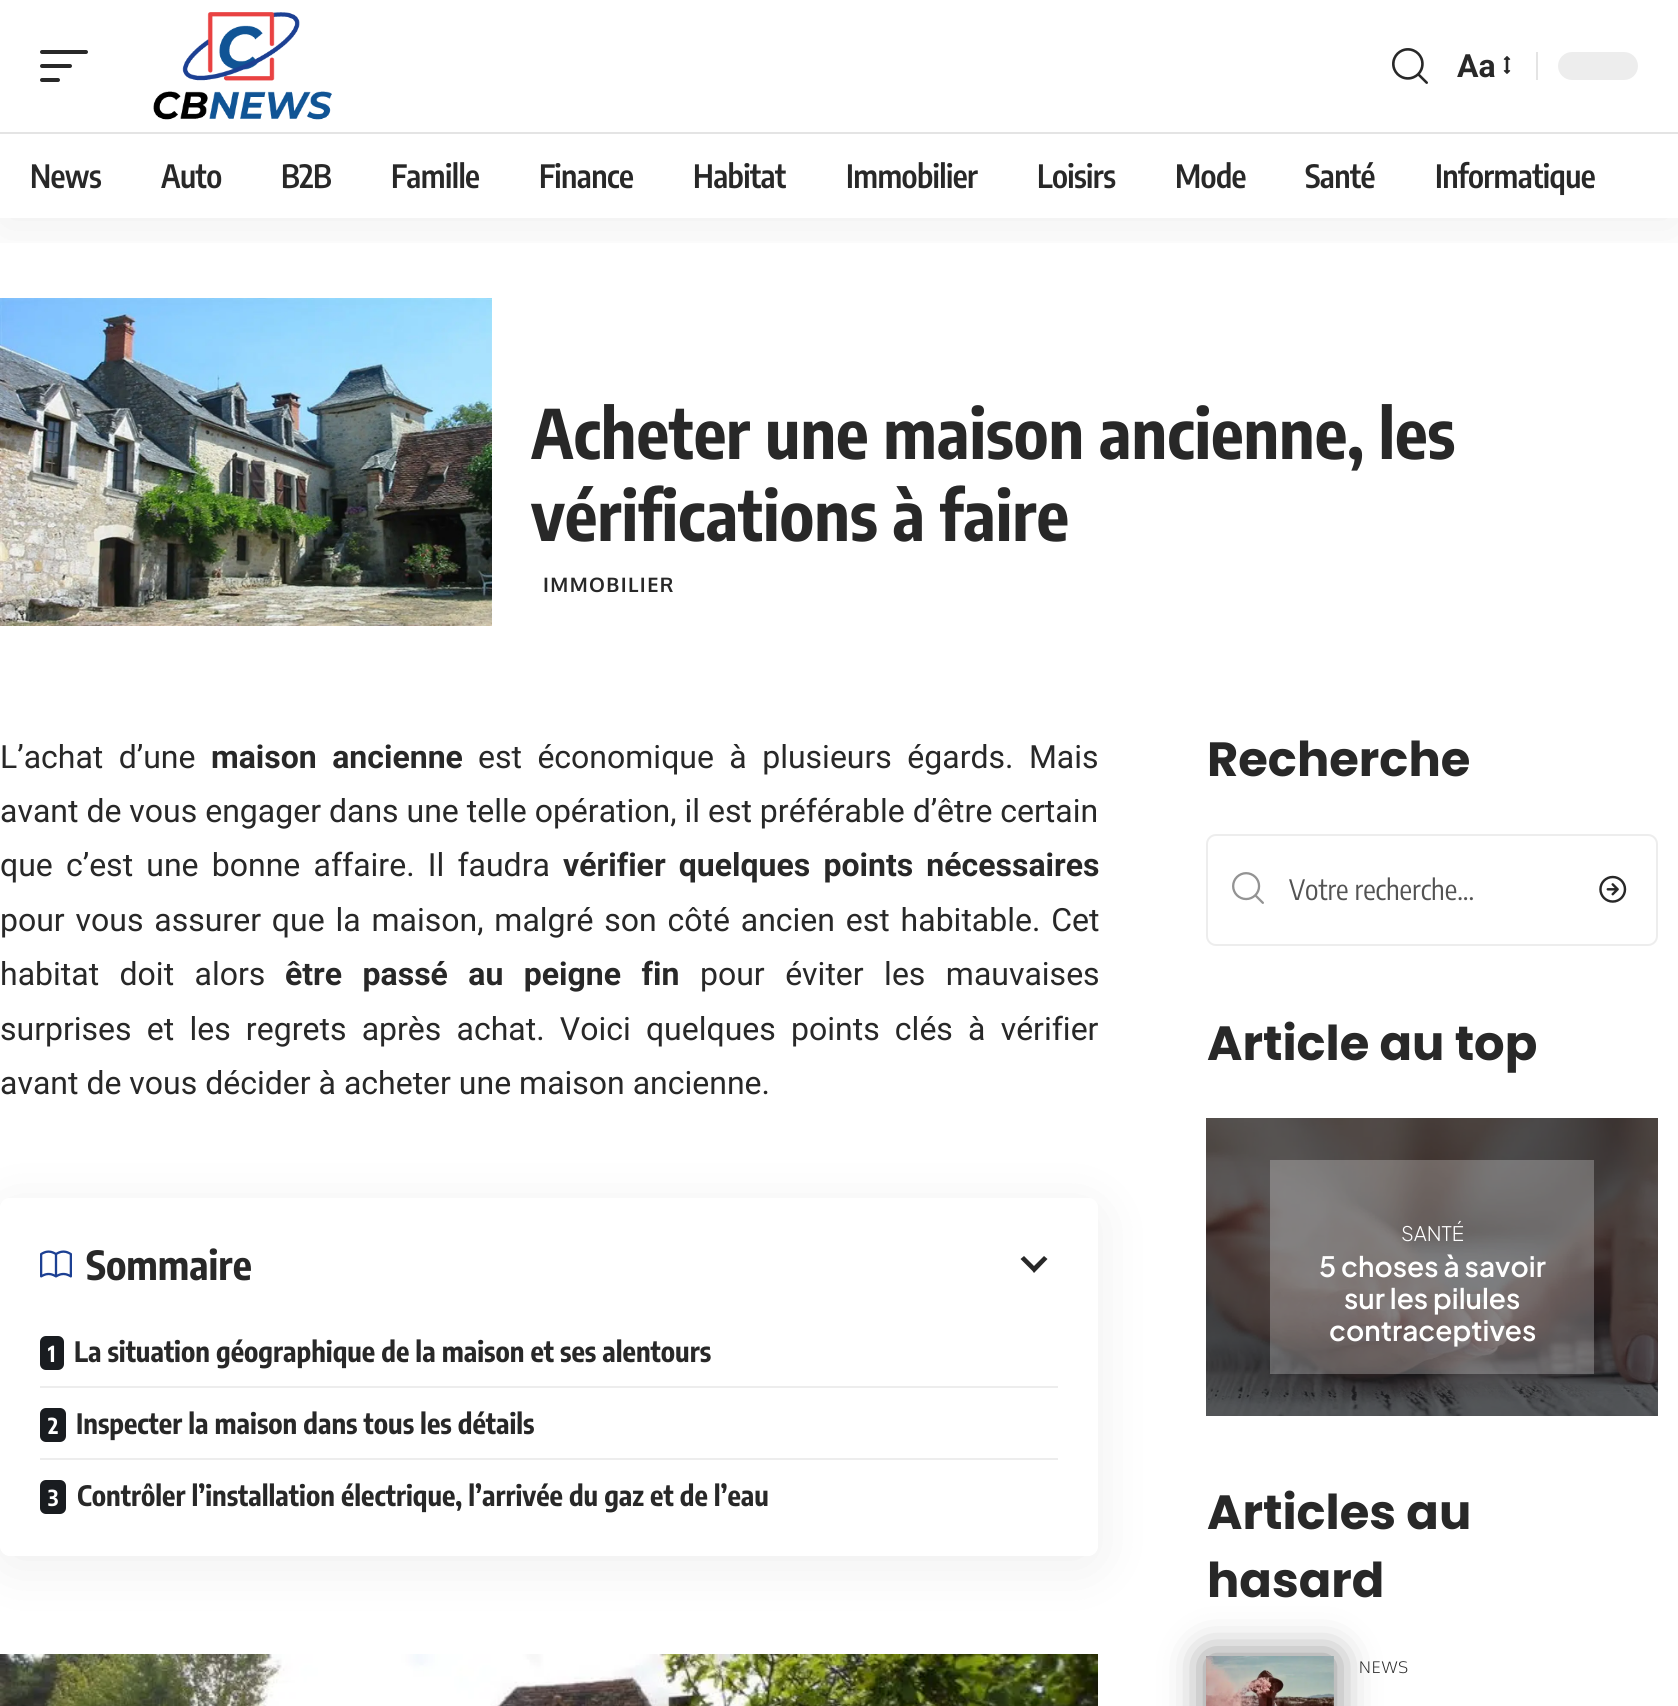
#include <cairo/cairo.h>
#include <math.h>
#include <stddef.h>


static void draw_spaced(cairo_t *cr, double x, double y, const char *s, double letter, double word) {
  cairo_move_to(cr, x, y);
  while (*s) {
    char ch[5] = {0};
    int n = 0;
    do ch[n++] = *s++; while ((*s & 0xC0) == 0x80);
    cairo_show_text(cr, ch);
    cairo_rel_move_to(cr, letter + word * (*ch == ' '), 0);
  }
}

static void rounded_rect(cairo_t *cr, double x, double y, double w, double h, double r) {
  cairo_new_sub_path(cr);
  cairo_arc(cr, x + w - r, y + h - r, r, 0, M_PI / 2);
  cairo_arc(cr, x + r, y + h - r, r, M_PI / 2, M_PI);
  cairo_arc(cr, x + r, y + r, r, M_PI, 1.5 * M_PI);
  cairo_arc(cr, x + w - r, y + r, r, 1.5 * M_PI, 2 * M_PI);
  cairo_close_path(cr);
}

static void draw_shadow(cairo_t *cr, double x, double y, double w, double h, double r, double blur, double alpha) {
  cairo_push_group_with_content(cr, CAIRO_CONTENT_ALPHA);
  cairo_set_operator(cr, CAIRO_OPERATOR_SOURCE);
  for (int i = 15; i >= -15 && fmin(w, h) + blur * i / 3 > 0; i -= 2) {
    double e = blur * i / 6;
    cairo_set_source_rgba(cr, 0, 0, 0, alpha * erfc((i - 1) / 8.5) / 2);
    rounded_rect(cr, x - e, y - e, w + 2 * e, h + 2 * e, fmax(0, fmin(r + e + blur * .6, fmin(w, h) / 2 + e)));
    cairo_fill(cr);
  }
  cairo_pattern_t *soft = cairo_pop_group(cr);
  cairo_mask(cr, soft);
  cairo_pattern_destroy(soft);
}

static void draw_image(cairo_t *cr, const char *path, double x, double y, double w, double h) {
  cairo_surface_t *image = cairo_image_surface_create_from_png(path);
  cairo_save(cr);
  cairo_set_source_surface(cr, image, x, y);
  cairo_rectangle(cr, x, y, w, h);
  cairo_fill(cr);
  cairo_restore(cr);
  cairo_surface_destroy(image);
}

static void draw(cairo_t *cr) {
  cairo_set_source_rgb(cr, 1, 1, 1);
  cairo_paint(cr);
  draw_image(cr, "images/4.png", 0, 298, 492, 328);
  cairo_save(cr);
  cairo_rectangle(cr, 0, 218, 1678, 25);
  cairo_clip(cr);
  cairo_set_source_rgb(cr, 0, 0, 0);
  draw_shadow(cr, 0, 8, 1678, 218, 0, 30, 0.07);
  cairo_restore(cr);
  cairo_set_source_rgb(cr, 40 / 255.0, 40 / 255.0, 40 / 255.0);
  rounded_rect(cr, 40, 50, 48, 4, 2);
  cairo_fill(cr);
  rounded_rect(cr, 40, 64, 32, 4, 2);
  cairo_fill(cr);
  rounded_rect(cr, 40, 78, 20, 4, 2);
  cairo_fill(cr);
  draw_image(cr, "images/1.png", 153, 12, 179, 108);
  draw_image(cr, "images/2.png", 1392, 48, 36, 36);
  draw_image(cr, "images/3.png", 1503, 56, 8, 18);
  cairo_set_source_rgb(cr, 228 / 255.0, 228 / 255.0, 228 / 255.0);
  cairo_rectangle(cr, 1536, 52, 2, 28);
  cairo_fill(cr);
  cairo_set_source_rgb(cr, 237 / 255.0, 237 / 255.0, 237 / 255.0);
  rounded_rect(cr, 1558, 52, 80, 28, 14);
  cairo_fill(cr);
  cairo_set_source_rgb(cr, 228 / 255.0, 228 / 255.0, 228 / 255.0);
  cairo_rectangle(cr, 0, 132, 1678, 2);
  cairo_fill(cr);
  draw_image(cr, "images/6.png", 0, 1654, 1098, 52);
  cairo_save(cr);
  cairo_set_fill_rule(cr, CAIRO_FILL_RULE_EVEN_ODD);
  cairo_new_path(cr);
  cairo_move_to(cr, 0, 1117);
  cairo_line_to(cr, 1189, 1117);
  cairo_line_to(cr, 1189, 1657);
  cairo_line_to(cr, 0, 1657);
  cairo_close_path(cr);
  cairo_move_to(cr, 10, 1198);
  cairo_line_to(cr, 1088, 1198);
  cairo_curve_to(cr, 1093.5, 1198, 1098, 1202.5, 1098, 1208);
  cairo_line_to(cr, 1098, 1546);
  cairo_curve_to(cr, 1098, 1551.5, 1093.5, 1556, 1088, 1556);
  cairo_line_to(cr, 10, 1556);
  cairo_curve_to(cr, 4.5, 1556, 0, 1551.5, 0, 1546);
  cairo_line_to(cr, 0, 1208);
  cairo_curve_to(cr, 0, 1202.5, 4.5, 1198, 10, 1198);
  cairo_close_path(cr);
  cairo_clip(cr);
  cairo_set_source_rgb(cr, 0, 0, 0);
  draw_shadow(cr, 0, 1208, 1098, 358, 10, 30, 0.07);
  cairo_restore(cr);
  draw_image(cr, "images/5.png", 40, 1250, 32, 28);
  cairo_set_source_rgb(cr, 40 / 255.0, 40 / 255.0, 40 / 255.0);
  cairo_new_path(cr);
  cairo_move_to(cr, 1032.5, 1271);
  cairo_line_to(cr, 1034, 1273);
  cairo_line_to(cr, 1047.5, 1259);
  cairo_line_to(cr, 1044, 1256);
  cairo_line_to(cr, 1034, 1266);
  cairo_line_to(cr, 1024, 1256);
  cairo_line_to(cr, 1020.5, 1259);
  cairo_close_path(cr);
  cairo_fill(cr);
  cairo_set_source_rgb(cr, 25 / 255.0, 28 / 255.0, 32 / 255.0);
  rounded_rect(cr, 40, 1336, 24, 34, 6);
  cairo_fill(cr);
  cairo_set_source_rgb(cr, 237 / 255.0, 237 / 255.0, 237 / 255.0);
  cairo_rectangle(cr, 40, 1386, 1018, 2);
  cairo_fill(cr);
  cairo_set_source_rgb(cr, 25 / 255.0, 28 / 255.0, 32 / 255.0);
  rounded_rect(cr, 40, 1408, 26, 34, 6);
  cairo_fill(cr);
  cairo_set_source_rgb(cr, 237 / 255.0, 237 / 255.0, 237 / 255.0);
  cairo_rectangle(cr, 40, 1458, 1018, 2);
  cairo_fill(cr);
  cairo_set_source_rgb(cr, 25 / 255.0, 28 / 255.0, 32 / 255.0);
  rounded_rect(cr, 40, 1480, 26, 34, 6);
  cairo_fill(cr);
  rounded_rect(cr, 1207, 835, 450, 110, 9);
  cairo_set_source_rgb(cr, 237 / 255.0, 237 / 255.0, 237 / 255.0);
  cairo_stroke(cr);
  draw_image(cr, "images/7.png", 1232, 872, 32, 32);
  draw_image(cr, "images/8.png", 1599, 875, 28, 28);
  draw_image(cr, "images/9.png", 1206, 1118, 452, 298);
  cairo_set_source_rgba(cr, 1, 1, 1, 0.25);
  cairo_rectangle(cr, 1270, 1160, 324, 214);
  cairo_fill(cr);
  cairo_set_source_rgb(cr, 0, 0, 0);
  draw_shadow(cr, 1206, 1656, 128, 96, 0, 20, 0.5);
  draw_image(cr, "images/10.png", 1206, 1656, 128, 50);
  cairo_select_font_face(cr, "Roboto", CAIRO_FONT_SLANT_NORMAL, CAIRO_FONT_WEIGHT_BOLD);
  cairo_set_font_size(cr, 32);
  cairo_set_source_rgb(cr, 40 / 255.0, 40 / 255.0, 40 / 255.0);
  cairo_move_to(cr, 1457, 77);
  cairo_show_text(cr, "Aa");
  cairo_select_font_face(cr, "Encode Sans Condensed SemiBold", CAIRO_FONT_SLANT_NORMAL, CAIRO_FONT_WEIGHT_NORMAL);
  draw_spaced(cr, 30, 188, "News", -0.6, 0);
  draw_spaced(cr, 161, 188, "Auto", -0.6, 0);
  draw_spaced(cr, 281, 188, "B2B", -0.6, 0);
  draw_spaced(cr, 391, 188, "Famille", -0.6, 0);
  draw_spaced(cr, 539, 188, "Finance", -0.6, 0);
  draw_spaced(cr, 693, 188, "Habitat", -0.6, 0);
  draw_spaced(cr, 846, 188, "Immobilier", -0.6, 0);
  draw_spaced(cr, 1037, 188, "Loisirs", -0.6, 0);
  draw_spaced(cr, 1175, 188, "Mode", -0.6, 0);
  draw_spaced(cr, 1305, 188, "Santé", -0.6, 0);
  draw_spaced(cr, 1435, 188, "Informatique", -0.6, 0);
  cairo_select_font_face(cr, "Encode Sans Condensed", CAIRO_FONT_SLANT_NORMAL, CAIRO_FONT_WEIGHT_BOLD);
  cairo_set_font_size(cr, 68);
  cairo_move_to(cr, 531, 459);
  cairo_show_text(cr, "Acheter une maison ancienne, les");
  cairo_move_to(cr, 531, 541);
  cairo_show_text(cr, "vérifications à faire");
  cairo_select_font_face(cr, "Oxygen", CAIRO_FONT_SLANT_NORMAL, CAIRO_FONT_WEIGHT_BOLD);
  cairo_set_font_size(cr, 20);
  draw_spaced(cr, 543, 592, "IMMOBILIER", 1.4, 0);
  cairo_select_font_face(cr, "Roboto", CAIRO_FONT_SLANT_NORMAL, CAIRO_FONT_WEIGHT_NORMAL);
  cairo_set_font_size(cr, 32);
  draw_spaced(cr, 0, 768, "L’achat d’une", 0, 7.5);
  cairo_select_font_face(cr, "Roboto", CAIRO_FONT_SLANT_NORMAL, CAIRO_FONT_WEIGHT_BOLD);
  draw_spaced(cr, 211, 768, "maison ancienne", 0, 7.5);
  cairo_select_font_face(cr, "Roboto", CAIRO_FONT_SLANT_NORMAL, CAIRO_FONT_WEIGHT_NORMAL);
  draw_spaced(cr, 478, 768, "est économique à plusieurs égards. Mais", 0, 7.5);
  cairo_move_to(cr, 0, 822);
  cairo_show_text(cr, "avant de vous engager dans une telle opération, il est préférable d’être certain");
  draw_spaced(cr, 0, 876, "que c’est une bonne affaire. Il faudra", 0, 5.25);
  cairo_select_font_face(cr, "Roboto", CAIRO_FONT_SLANT_NORMAL, CAIRO_FONT_WEIGHT_BOLD);
  draw_spaced(cr, 563, 876, "vérifier quelques points nécessaires", 0, 5.25);
  cairo_select_font_face(cr, "Roboto", CAIRO_FONT_SLANT_NORMAL, CAIRO_FONT_WEIGHT_NORMAL);
  draw_spaced(cr, 0, 931, "pour vous assurer que la maison, malgré son côté ancien est habitable. Cet", 0, 2.9);
  draw_spaced(cr, 0, 985, "habitat doit alors", 0, 12.5);
  cairo_select_font_face(cr, "Roboto", CAIRO_FONT_SLANT_NORMAL, CAIRO_FONT_WEIGHT_BOLD);
  draw_spaced(cr, 285, 985, "être passé au peigne fin", 0, 12.5);
  cairo_select_font_face(cr, "Roboto", CAIRO_FONT_SLANT_NORMAL, CAIRO_FONT_WEIGHT_NORMAL);
  draw_spaced(cr, 700, 985, "pour éviter les mauvaises", 0, 12.5);
  draw_spaced(cr, 0, 1040, "surprises et les regrets après achat. Voici quelques points clés à vérifier", 0, 7.25);
  cairo_move_to(cr, 0, 1094);
  cairo_show_text(cr, "avant de vous décider à acheter une maison ancienne.");
  cairo_select_font_face(cr, "Encode Sans Condensed", CAIRO_FONT_SLANT_NORMAL, CAIRO_FONT_WEIGHT_BOLD);
  cairo_set_font_size(cr, 40);
  cairo_move_to(cr, 86, 1280);
  cairo_show_text(cr, "Sommaire");
  cairo_set_font_size(cr, 22);
  cairo_set_source_rgb(cr, 1, 1, 1);
  cairo_move_to(cr, 48, 1362);
  cairo_show_text(cr, "1");
  cairo_set_font_size(cr, 28);
  cairo_set_source_rgb(cr, 40 / 255.0, 40 / 255.0, 40 / 255.0);
  cairo_move_to(cr, 74, 1362);
  cairo_show_text(cr, "La situation géographique de la maison et ses alentours");
  cairo_set_font_size(cr, 22);
  cairo_set_source_rgb(cr, 1, 1, 1);
  cairo_move_to(cr, 48, 1434);
  cairo_show_text(cr, "2");
  cairo_set_font_size(cr, 28);
  cairo_set_source_rgb(cr, 40 / 255.0, 40 / 255.0, 40 / 255.0);
  cairo_move_to(cr, 76, 1434);
  cairo_show_text(cr, "Inspecter la maison dans tous les détails");
  cairo_set_font_size(cr, 22);
  cairo_set_source_rgb(cr, 1, 1, 1);
  cairo_move_to(cr, 48, 1506);
  cairo_show_text(cr, "3");
  cairo_set_font_size(cr, 28);
  cairo_set_source_rgb(cr, 40 / 255.0, 40 / 255.0, 40 / 255.0);
  cairo_move_to(cr, 77, 1506);
  cairo_show_text(cr, "Contrôler l’installation électrique, l’arrivée du gaz et de l’eau");
  cairo_select_font_face(cr, "Poppins", CAIRO_FONT_SLANT_NORMAL, CAIRO_FONT_WEIGHT_BOLD);
  cairo_set_font_size(cr, 48);
  cairo_move_to(cr, 1207, 776);
  cairo_show_text(cr, "Recherche");
  cairo_select_font_face(cr, "Encode Sans Condensed", CAIRO_FONT_SLANT_NORMAL, CAIRO_FONT_WEIGHT_NORMAL);
  cairo_set_font_size(cr, 28);
  cairo_set_source_rgb(cr, 83 / 255.0, 83 / 255.0, 83 / 255.0);
  cairo_move_to(cr, 1289, 900);
  cairo_show_text(cr, "Votre recherche...");
  cairo_select_font_face(cr, "Poppins", CAIRO_FONT_SLANT_NORMAL, CAIRO_FONT_WEIGHT_BOLD);
  cairo_set_font_size(cr, 48);
  cairo_set_source_rgb(cr, 40 / 255.0, 40 / 255.0, 40 / 255.0);
  cairo_move_to(cr, 1207, 1060);
  cairo_show_text(cr, "Article au top");
  cairo_select_font_face(cr, "Plus Jakarta Sans Light", CAIRO_FONT_SLANT_NORMAL, CAIRO_FONT_WEIGHT_NORMAL);
  cairo_set_font_size(cr, 20);
  cairo_set_source_rgb(cr, 1, 1, 1);
  cairo_move_to(cr, 1401, 1241);
  cairo_show_text(cr, "SANTÉ");
  cairo_select_font_face(cr, "Plus Jakarta Sans SemiBold", CAIRO_FONT_SLANT_NORMAL, CAIRO_FONT_WEIGHT_NORMAL);
  cairo_set_font_size(cr, 28);
  cairo_move_to(cr, 1319, 1277);
  cairo_show_text(cr, "5 choses à savoir");
  cairo_move_to(cr, 1344, 1309);
  cairo_show_text(cr, "sur les pilules");
  cairo_move_to(cr, 1329, 1341);
  cairo_show_text(cr, "contraceptives");
  cairo_select_font_face(cr, "Poppins", CAIRO_FONT_SLANT_NORMAL, CAIRO_FONT_WEIGHT_BOLD);
  cairo_set_font_size(cr, 48);
  cairo_set_source_rgb(cr, 40 / 255.0, 40 / 255.0, 40 / 255.0);
  cairo_move_to(cr, 1207, 1529);
  cairo_show_text(cr, "Articles au");
  cairo_move_to(cr, 1207, 1597);
  cairo_show_text(cr, "hasard");
  cairo_select_font_face(cr, "Oxygen Light", CAIRO_FONT_SLANT_NORMAL, CAIRO_FONT_WEIGHT_NORMAL);
  cairo_set_font_size(cr, 16);
  draw_spaced(cr, 1359, 1673, "NEWS", 1, 0);
}

int main(void) {
  cairo_surface_t *surface = cairo_image_surface_create(CAIRO_FORMAT_RGB24, 1678, 1706);
  cairo_t *cr = cairo_create(surface);
  cairo_font_options_t *options = cairo_font_options_create();
  cairo_font_options_set_hint_metrics(options, CAIRO_HINT_METRICS_OFF);
  cairo_font_options_set_hint_style(options, CAIRO_HINT_STYLE_NONE);
  cairo_set_font_options(cr, options);
  cairo_set_miter_limit(cr, 4);
  draw(cr);
  cairo_surface_write_to_png(surface, "out.png");
  cairo_font_options_destroy(options);
  cairo_destroy(cr);
  cairo_surface_destroy(surface);
  return 0;
}
